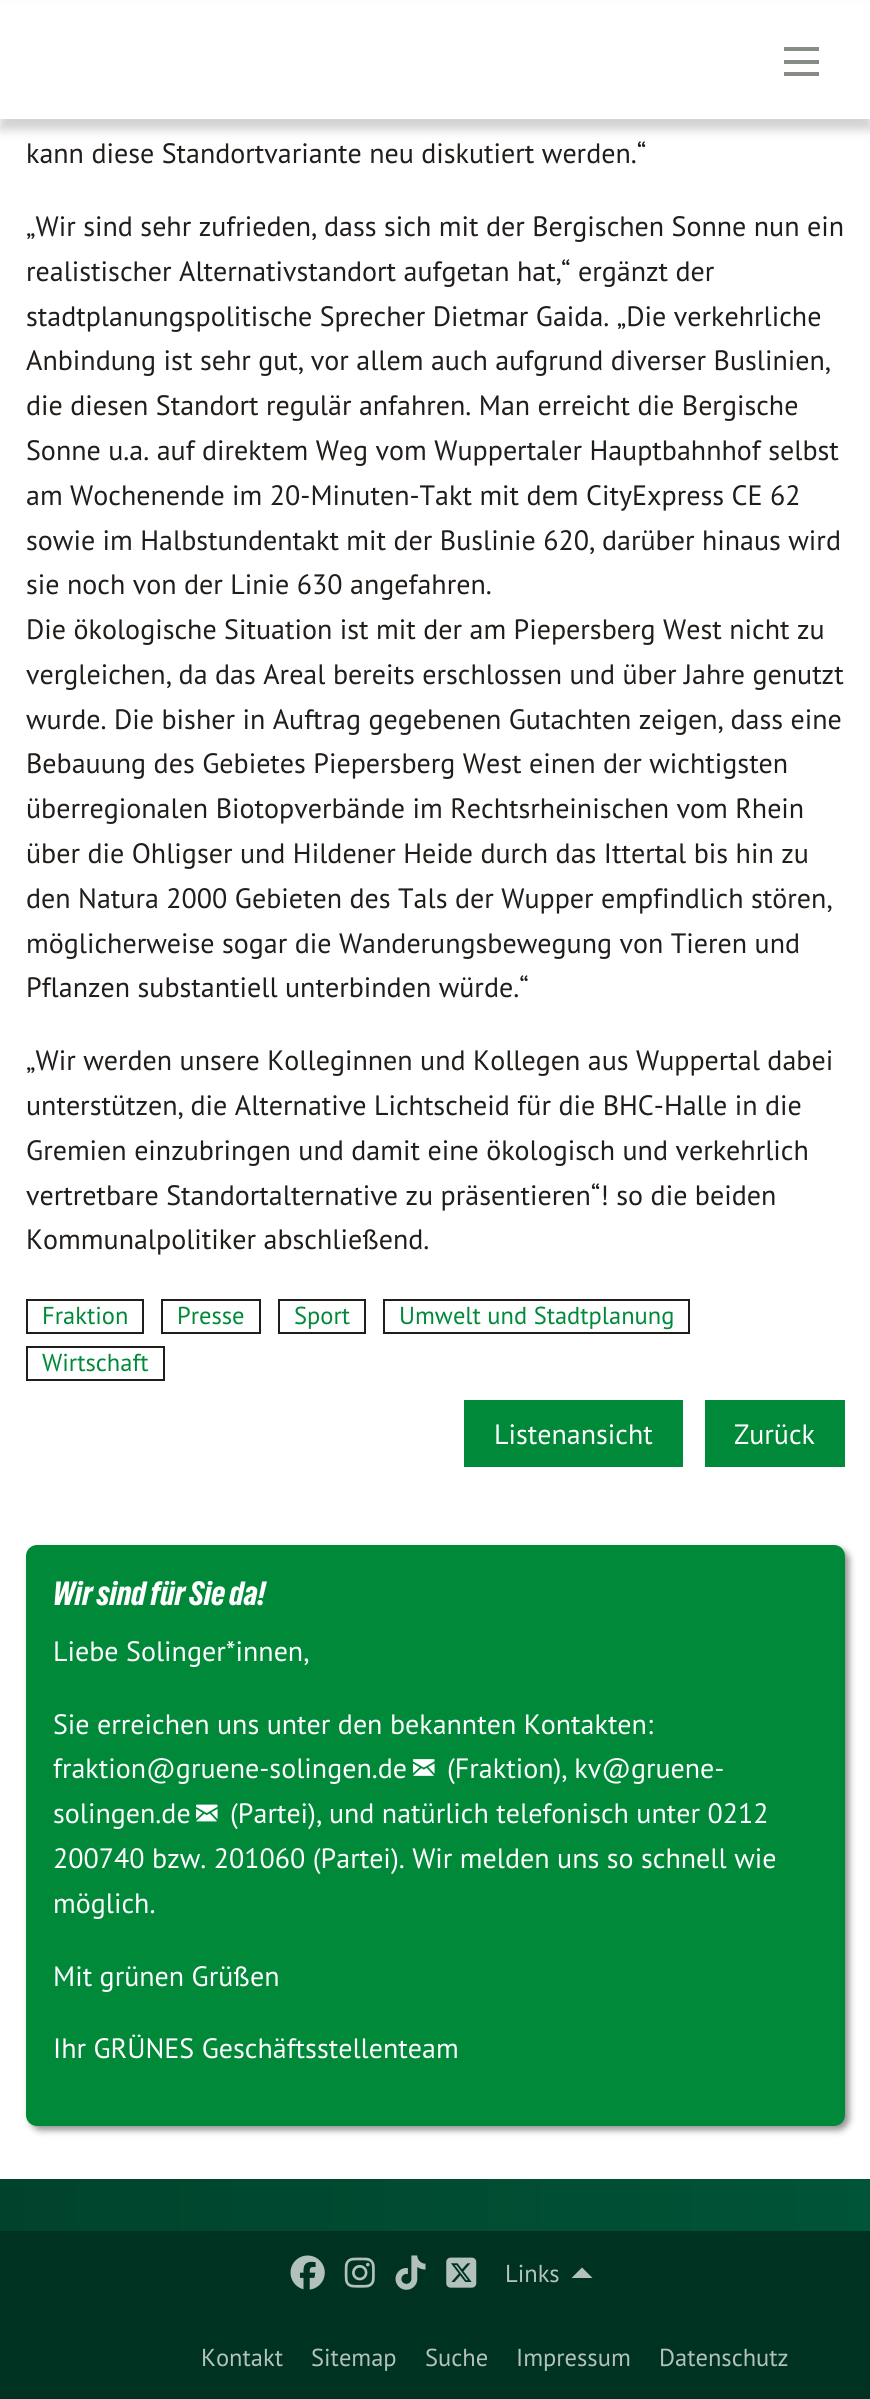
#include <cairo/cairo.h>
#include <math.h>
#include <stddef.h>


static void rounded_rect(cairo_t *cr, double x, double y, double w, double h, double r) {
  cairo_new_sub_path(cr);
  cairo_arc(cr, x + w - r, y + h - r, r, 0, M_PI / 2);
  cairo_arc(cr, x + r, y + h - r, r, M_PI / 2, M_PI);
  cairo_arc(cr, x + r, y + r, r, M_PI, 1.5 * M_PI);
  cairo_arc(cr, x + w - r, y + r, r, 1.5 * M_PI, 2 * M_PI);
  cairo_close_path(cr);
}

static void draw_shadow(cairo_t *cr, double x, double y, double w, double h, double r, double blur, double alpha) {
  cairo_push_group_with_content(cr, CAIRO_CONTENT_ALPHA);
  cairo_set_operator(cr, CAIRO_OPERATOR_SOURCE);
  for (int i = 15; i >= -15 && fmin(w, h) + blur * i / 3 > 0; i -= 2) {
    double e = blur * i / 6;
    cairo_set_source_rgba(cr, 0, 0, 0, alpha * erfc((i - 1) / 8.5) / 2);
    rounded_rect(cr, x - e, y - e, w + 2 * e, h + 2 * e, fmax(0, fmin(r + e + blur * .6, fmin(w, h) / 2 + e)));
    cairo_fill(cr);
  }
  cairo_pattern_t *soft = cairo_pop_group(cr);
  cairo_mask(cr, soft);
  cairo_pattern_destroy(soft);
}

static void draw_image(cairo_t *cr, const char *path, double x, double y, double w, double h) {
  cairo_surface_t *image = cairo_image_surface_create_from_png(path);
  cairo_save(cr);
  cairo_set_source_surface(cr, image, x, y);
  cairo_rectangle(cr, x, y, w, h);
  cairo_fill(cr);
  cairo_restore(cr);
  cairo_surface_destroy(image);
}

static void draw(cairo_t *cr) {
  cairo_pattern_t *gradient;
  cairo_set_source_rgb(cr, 1, 1, 1);
  cairo_paint(cr);
  cairo_set_source_rgb(cr, 32 / 255.0, 29 / 255.0, 27 / 255.0);
  draw_shadow(cr, 0, 11, 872, 119, 0, 5, 0.2);
  cairo_set_source_rgb(cr, 1, 1, 1);
  cairo_rectangle(cr, 0, 3, 870, 116);
  cairo_fill(cr);
  cairo_set_source_rgb(cr, 135 / 255.0, 140 / 255.0, 133 / 255.0);
  cairo_rectangle(cr, 784, 72, 35, 4);
  cairo_fill(cr);
  cairo_rectangle(cr, 784, 60, 35, 4);
  cairo_fill(cr);
  cairo_rectangle(cr, 784, 47, 35, 4);
  cairo_fill(cr);
  cairo_rectangle(cr, 27, 1300, 116, 33);
  cairo_set_source_rgb(cr, 32 / 255.0, 29 / 255.0, 27 / 255.0);
  cairo_stroke(cr);
  cairo_rectangle(cr, 162, 1300, 98, 33);
  cairo_stroke(cr);
  cairo_rectangle(cr, 279, 1300, 86, 33);
  cairo_stroke(cr);
  cairo_rectangle(cr, 384, 1300, 305, 33);
  cairo_stroke(cr);
  cairo_rectangle(cr, 27, 1347, 137, 33);
  cairo_stroke(cr);
  cairo_set_source_rgb(cr, 0, 137 / 255.0, 57 / 255.0);
  cairo_rectangle(cr, 464, 1400, 219, 67);
  cairo_fill(cr);
  cairo_rectangle(cr, 705, 1400, 140, 67);
  cairo_fill(cr);
  cairo_set_source_rgb(cr, 32 / 255.0, 29 / 255.0, 27 / 255.0);
  draw_shadow(cr, 30, 1549, 819, 581, 11, 3.5, 0.5);
  cairo_set_source_rgb(cr, 0, 137 / 255.0, 57 / 255.0);
  rounded_rect(cr, 26, 1545, 819, 581, 11);
  cairo_fill(cr);
  draw_image(cr, "images/1.png", 413, 1759, 22, 17);
  draw_image(cr, "images/2.png", 196, 1804, 22, 18);
  gradient = cairo_pattern_create_linear(0, 2205, 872, 2205);
  cairo_pattern_add_color_stop_rgba(gradient, 0, 0, 67 / 255.0, 44 / 255.0, 1);
  cairo_pattern_add_color_stop_rgba(gradient, 1, 0, 84 / 255.0, 55 / 255.0, 1);
  cairo_set_source(cr, gradient);
  cairo_pattern_destroy(gradient);
  cairo_rectangle(cr, 0, 2179, 870, 52);
  cairo_fill(cr);
  cairo_set_source_rgb(cr, 0, 50 / 255.0, 33 / 255.0);
  cairo_rectangle(cr, 0, 2231, 870, 168);
  cairo_fill(cr);
  draw_image(cr, "images/3.png", 290, 2255, 35, 35);
  draw_image(cr, "images/4.png", 344, 2257, 31, 31);
  draw_image(cr, "images/5.png", 395, 2255, 31, 35);
  draw_image(cr, "images/6.png", 446, 2257, 31, 31);
  cairo_set_source_rgb(cr, 179 / 255.0, 194 / 255.0, 188 / 255.0);
  cairo_new_path(cr);
  cairo_move_to(cr, 592.5, 2278);
  cairo_line_to(cr, 571.5, 2278);
  cairo_line_to(cr, 582, 2267.5);
  cairo_close_path(cr);
  cairo_fill(cr);
  cairo_select_font_face(cr, "PT Sans", CAIRO_FONT_SLANT_NORMAL, CAIRO_FONT_WEIGHT_NORMAL);
  cairo_set_font_size(cr, 28);
  cairo_set_source_rgb(cr, 32 / 255.0, 29 / 255.0, 27 / 255.0);
  cairo_move_to(cr, 26, 163);
  cairo_show_text(cr, "kann diese Standortvariante neu diskutiert werden.“");
  cairo_move_to(cr, 26, 236);
  cairo_show_text(cr, "„Wir sind sehr zufrieden, dass sich mit der Bergischen Sonne nun ein");
  cairo_move_to(cr, 26, 281);
  cairo_show_text(cr, "realistischer Alternativstandort aufgetan hat,“ ergänzt der");
  cairo_move_to(cr, 26, 326);
  cairo_show_text(cr, "stadtplanungspolitische Sprecher Dietmar Gaida. „Die verkehrliche");
  cairo_move_to(cr, 26, 370);
  cairo_show_text(cr, "Anbindung ist sehr gut, vor allem auch aufgrund diverser Buslinien,");
  cairo_move_to(cr, 26, 415);
  cairo_show_text(cr, "die diesen Standort regulär anfahren. Man erreicht die Bergische");
  cairo_move_to(cr, 26, 460);
  cairo_show_text(cr, "Sonne u.a. auf direktem Weg vom Wuppertaler Hauptbahnhof selbst");
  cairo_move_to(cr, 26, 505);
  cairo_show_text(cr, "am Wochenende im 20-Minuten-Takt mit dem CityExpress CE 62");
  cairo_move_to(cr, 26, 550);
  cairo_show_text(cr, "sowie im Halbstundentakt mit der Buslinie 620, darüber hinaus wird");
  cairo_move_to(cr, 26, 594);
  cairo_show_text(cr, "sie noch von der Linie 630 angefahren.");
  cairo_move_to(cr, 26, 639);
  cairo_show_text(cr, "Die ökologische Situation ist mit der am Piepersberg West nicht zu");
  cairo_move_to(cr, 26, 684);
  cairo_show_text(cr, "vergleichen, da das Areal bereits erschlossen und über Jahre genutzt");
  cairo_move_to(cr, 26, 729);
  cairo_show_text(cr, "wurde. Die bisher in Auftrag gegebenen Gutachten zeigen, dass eine");
  cairo_move_to(cr, 26, 773);
  cairo_show_text(cr, "Bebauung des Gebietes Piepersberg West einen der wichtigsten");
  cairo_move_to(cr, 26, 818);
  cairo_show_text(cr, "überregionalen Biotopverbände im Rechtsrheinischen vom Rhein");
  cairo_move_to(cr, 26, 863);
  cairo_show_text(cr, "über die Ohligser und Hildener Heide durch das Ittertal bis hin zu");
  cairo_move_to(cr, 26, 908);
  cairo_show_text(cr, "den Natura 2000 Gebieten des Tals der Wupper empfindlich stören,");
  cairo_move_to(cr, 26, 953);
  cairo_show_text(cr, "möglicherweise sogar die Wanderungsbewegung von Tieren und");
  cairo_move_to(cr, 26, 997);
  cairo_show_text(cr, "Pflanzen substantiell unterbinden würde.“");
  cairo_move_to(cr, 26, 1070);
  cairo_show_text(cr, "„Wir werden unsere Kolleginnen und Kollegen aus Wuppertal dabei");
  cairo_move_to(cr, 26, 1115);
  cairo_show_text(cr, "unterstützen, die Alternative Lichtscheid für die BHC-Halle in die");
  cairo_move_to(cr, 26, 1160);
  cairo_show_text(cr, "Gremien einzubringen und damit eine ökologisch und verkehrlich");
  cairo_move_to(cr, 26, 1205);
  cairo_show_text(cr, "vertretbare Standortalternative zu präsentieren“! so die beiden");
  cairo_move_to(cr, 26, 1249);
  cairo_show_text(cr, "Kommunalpolitiker abschließend.");
  cairo_set_font_size(cr, 24.5);
  cairo_set_source_rgb(cr, 0, 137 / 255.0, 57 / 255.0);
  cairo_move_to(cr, 42, 1324);
  cairo_show_text(cr, "Fraktion");
  cairo_move_to(cr, 177, 1324);
  cairo_show_text(cr, "Presse");
  cairo_move_to(cr, 294, 1324);
  cairo_show_text(cr, "Sport");
  cairo_move_to(cr, 399, 1324);
  cairo_show_text(cr, "Umwelt und Stadtplanung");
  cairo_move_to(cr, 42, 1371);
  cairo_show_text(cr, "Wirtschaft");
  cairo_set_font_size(cr, 28);
  cairo_set_source_rgb(cr, 1, 1, 1);
  cairo_move_to(cr, 494, 1444);
  cairo_show_text(cr, "Listenansicht");
  cairo_move_to(cr, 734, 1444);
  cairo_show_text(cr, "Zurück");
  cairo_select_font_face(cr, "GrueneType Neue", CAIRO_FONT_SLANT_NORMAL, CAIRO_FONT_WEIGHT_NORMAL);
  cairo_set_font_size(cr, 31.5);
  cairo_move_to(cr, 53, 1605);
  cairo_show_text(cr, "Wir sind für Sie da!");
  cairo_select_font_face(cr, "PT Sans", CAIRO_FONT_SLANT_NORMAL, CAIRO_FONT_WEIGHT_NORMAL);
  cairo_set_font_size(cr, 28);
  cairo_move_to(cr, 53, 1661);
  cairo_show_text(cr, "Liebe Solinger*innen,");
  cairo_move_to(cr, 53, 1734);
  cairo_show_text(cr, "Sie erreichen uns unter den bekannten Kontakten:");
  cairo_move_to(cr, 53, 1778);
  cairo_show_text(cr, "fraktion@gruene-solingen.de");
  cairo_move_to(cr, 447, 1778);
  cairo_show_text(cr, "(Fraktion), kv@gruene-");
  cairo_move_to(cr, 53, 1823);
  cairo_show_text(cr, "solingen.de");
  cairo_move_to(cr, 230, 1823);
  cairo_show_text(cr, "(Partei), und natürlich telefonisch unter 0212");
  cairo_move_to(cr, 53, 1868);
  cairo_show_text(cr, "200740 bzw. 201060 (Partei). Wir melden uns so schnell wie");
  cairo_move_to(cr, 53, 1913);
  cairo_show_text(cr, "möglich.");
  cairo_move_to(cr, 53, 1986);
  cairo_show_text(cr, "Mit grünen Grüßen");
  cairo_move_to(cr, 53, 2058);
  cairo_show_text(cr, "Ihr GRÜNES Geschäftsstellenteam");
  cairo_set_font_size(cr, 24.5);
  cairo_set_source_rgb(cr, 179 / 255.0, 194 / 255.0, 188 / 255.0);
  cairo_move_to(cr, 505, 2282);
  cairo_show_text(cr, "Links");
  cairo_move_to(cr, 201, 2366);
  cairo_show_text(cr, "Kontakt");
  cairo_move_to(cr, 311, 2366);
  cairo_show_text(cr, "Sitemap");
  cairo_move_to(cr, 425, 2366);
  cairo_show_text(cr, "Suche");
  cairo_move_to(cr, 516, 2366);
  cairo_show_text(cr, "Impressum");
  cairo_move_to(cr, 659, 2366);
  cairo_show_text(cr, "Datenschutz");
}

int main(void) {
  cairo_surface_t *surface = cairo_image_surface_create(CAIRO_FORMAT_RGB24, 870, 2399);
  cairo_t *cr = cairo_create(surface);
  cairo_font_options_t *options = cairo_font_options_create();
  cairo_font_options_set_hint_metrics(options, CAIRO_HINT_METRICS_OFF);
  cairo_font_options_set_hint_style(options, CAIRO_HINT_STYLE_NONE);
  cairo_set_font_options(cr, options);
  cairo_set_miter_limit(cr, 4);
  draw(cr);
  cairo_surface_write_to_png(surface, "out.png");
  cairo_font_options_destroy(options);
  cairo_destroy(cr);
  cairo_surface_destroy(surface);
  return 0;
}
